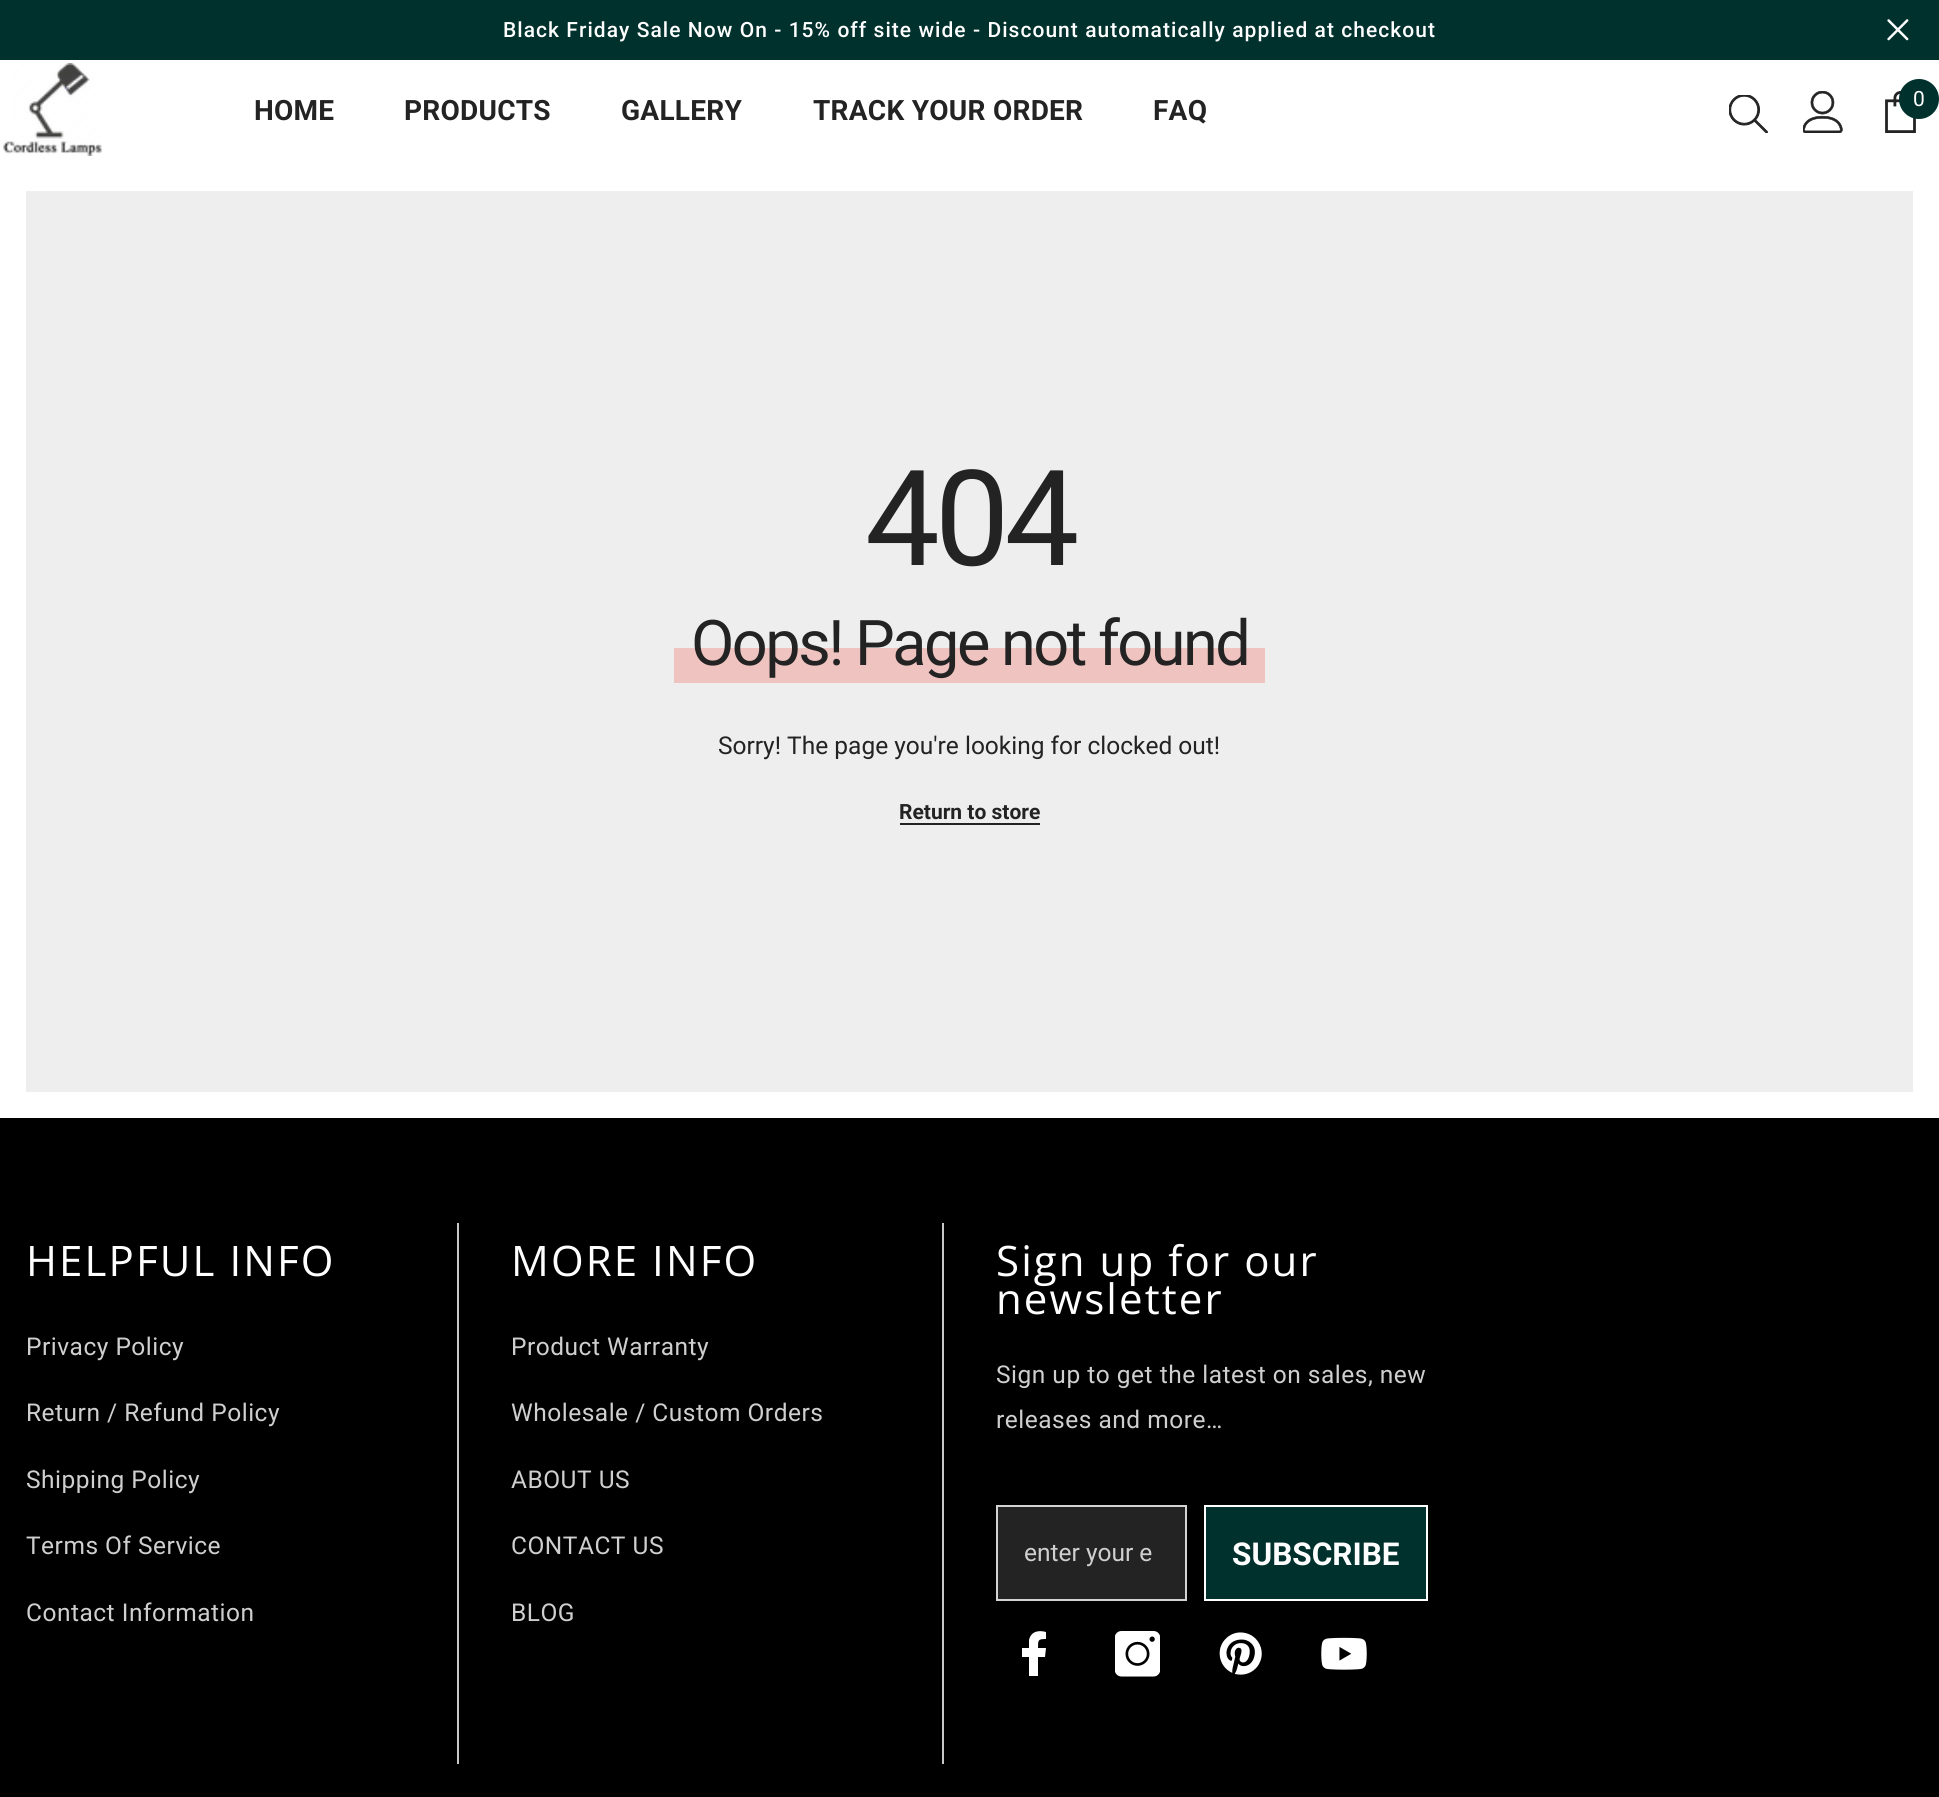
#include <cairo/cairo.h>
#include <math.h>
#include <stddef.h>


static void draw_spaced(cairo_t *cr, double x, double y, const char *s, double letter, double word) {
  cairo_move_to(cr, x, y);
  while (*s) {
    char ch[5] = {0};
    int n = 0;
    do ch[n++] = *s++; while ((*s & 0xC0) == 0x80);
    cairo_show_text(cr, ch);
    cairo_rel_move_to(cr, letter + word * (*ch == ' '), 0);
  }
}

static void draw_image(cairo_t *cr, const char *path, double x, double y, double w, double h) {
  cairo_surface_t *image = cairo_image_surface_create_from_png(path);
  cairo_save(cr);
  cairo_set_source_surface(cr, image, x, y);
  cairo_rectangle(cr, x, y, w, h);
  cairo_fill(cr);
  cairo_restore(cr);
  cairo_surface_destroy(image);
}

static void draw(cairo_t *cr) {
  cairo_set_source_rgb(cr, 1, 1, 1);
  cairo_paint(cr);
  cairo_set_source_rgb(cr, 0, 49 / 255.0, 45 / 255.0);
  cairo_rectangle(cr, 0, 0, 1939, 60);
  cairo_fill(cr);
  draw_image(cr, "images/1.png", 1887, 19, 22, 22);
  draw_image(cr, "images/2.png", 3, 63, 99, 93);
  draw_image(cr, "images/3.png", 1729, 95, 39, 38);
  draw_image(cr, "images/4.png", 1803, 91, 40, 42);
  draw_image(cr, "images/5.png", 1885, 91, 31, 42);
  cairo_arc(cr, 1919, 99, 20, 0, 2 * M_PI);
  cairo_fill(cr);
  cairo_set_source_rgb(cr, 238 / 255.0, 238 / 255.0, 238 / 255.0);
  cairo_rectangle(cr, 26, 191, 1887, 901);
  cairo_fill(cr);
  cairo_set_source_rgb(cr, 239 / 255.0, 195 / 255.0, 192 / 255.0);
  cairo_rectangle(cr, 674, 648, 591, 35);
  cairo_fill(cr);
  cairo_set_source_rgb(cr, 35 / 255.0, 35 / 255.0, 35 / 255.0);
  cairo_rectangle(cr, 900, 823, 140, 2);
  cairo_fill(cr);
  cairo_set_source_rgb(cr, 0, 0, 0);
  cairo_rectangle(cr, 0, 1118, 1939, 679);
  cairo_fill(cr);
  cairo_set_source_rgb(cr, 199 / 255.0, 199 / 255.0, 199 / 255.0);
  cairo_rectangle(cr, 457, 1223, 2, 541);
  cairo_fill(cr);
  cairo_rectangle(cr, 942, 1223, 2, 541);
  cairo_fill(cr);
  cairo_set_source_rgb(cr, 35 / 255.0, 35 / 255.0, 35 / 255.0);
  cairo_rectangle(cr, 997, 1506, 189, 94);
  cairo_fill_preserve(cr);
  cairo_set_source_rgb(cr, 211 / 255.0, 211 / 255.0, 211 / 255.0);
  cairo_stroke(cr);
  cairo_set_source_rgb(cr, 0, 49 / 255.0, 45 / 255.0);
  cairo_rectangle(cr, 1205, 1506, 222, 94);
  cairo_fill_preserve(cr);
  cairo_set_source_rgb(cr, 1, 1, 1);
  cairo_stroke(cr);
  cairo_new_path(cr);
  cairo_move_to(cr, 1045, 1657);
  cairo_line_to(cr, 1046, 1648);
  cairo_line_to(cr, 1038, 1648);
  cairo_curve_to(cr, 1038, 1640, 1038, 1639, 1046, 1639);
  cairo_line_to(cr, 1046, 1632);
  cairo_curve_to(cr, 1039, 1630, 1031, 1631, 1029, 1640);
  cairo_line_to(cr, 1029, 1648);
  cairo_line_to(cr, 1022, 1648);
  cairo_line_to(cr, 1022, 1657);
  cairo_line_to(cr, 1029, 1657);
  cairo_line_to(cr, 1029, 1676);
  cairo_line_to(cr, 1038, 1676);
  cairo_line_to(cr, 1038, 1657);
  cairo_close_path(cr);
  cairo_fill(cr);
  draw_image(cr, "images/6.png", 1115, 1631, 45, 46);
  draw_image(cr, "images/7.png", 1219, 1632, 43, 43);
  draw_image(cr, "images/8.png", 1321, 1637, 46, 33);
  cairo_select_font_face(cr, "Roboto Medium", CAIRO_FONT_SLANT_NORMAL, CAIRO_FONT_WEIGHT_NORMAL);
  cairo_set_font_size(cr, 21);
  draw_spaced(cr, 503, 37, "Black Friday Sale Now On - 15% off site wide - Discount automatically applied at checkout", 1.05, 0);
  cairo_select_font_face(cr, "Roboto", CAIRO_FONT_SLANT_NORMAL, CAIRO_FONT_WEIGHT_BOLD);
  cairo_set_font_size(cr, 28);
  cairo_set_source_rgb(cr, 35 / 255.0, 35 / 255.0, 35 / 255.0);
  draw_spaced(cr, 254, 120, "HOME", 0.25, 0);
  draw_spaced(cr, 404, 120, "PRODUCTS", 0.25, 0);
  draw_spaced(cr, 621, 120, "GALLERY", 0.25, 0);
  draw_spaced(cr, 813, 120, "TRACK YOUR ORDER", 0.25, 0);
  draw_spaced(cr, 1153, 120, "FAQ", 0.25, 0);
  cairo_select_font_face(cr, "Roboto", CAIRO_FONT_SLANT_NORMAL, CAIRO_FONT_WEIGHT_NORMAL);
  cairo_set_font_size(cr, 21);
  cairo_set_source_rgb(cr, 1, 1, 1);
  cairo_move_to(cr, 1913, 106);
  cairo_show_text(cr, "0");
  cairo_set_font_size(cr, 133);
  cairo_set_source_rgb(cr, 35 / 255.0, 35 / 255.0, 35 / 255.0);
  draw_spaced(cr, 865, 565, "404", -5, 0);
  cairo_set_font_size(cr, 63);
  draw_spaced(cr, 691, 665, "Oops! Page not found", -2.5, 0);
  cairo_set_font_size(cr, 24.5);
  cairo_move_to(cr, 718, 754);
  cairo_show_text(cr, "Sorry! The page you're looking for clocked out!");
  cairo_select_font_face(cr, "Roboto", CAIRO_FONT_SLANT_NORMAL, CAIRO_FONT_WEIGHT_BOLD);
  cairo_set_font_size(cr, 21);
  cairo_move_to(cr, 899, 819);
  cairo_show_text(cr, "Return to store");
  cairo_select_font_face(cr, "Open Sans", CAIRO_FONT_SLANT_NORMAL, CAIRO_FONT_WEIGHT_NORMAL);
  cairo_set_font_size(cr, 42);
  cairo_set_source_rgb(cr, 1, 1, 1);
  draw_spaced(cr, 26, 1276, "HELPFUL INFO", 2.1, 0);
  cairo_select_font_face(cr, "Roboto", CAIRO_FONT_SLANT_NORMAL, CAIRO_FONT_WEIGHT_NORMAL);
  cairo_set_font_size(cr, 24.5);
  cairo_set_source_rgb(cr, 207 / 255.0, 207 / 255.0, 207 / 255.0);
  draw_spaced(cr, 26, 1355, "Privacy Policy", 0.5, 0);
  draw_spaced(cr, 26, 1421, "Return / Refund Policy", 0.5, 0);
  draw_spaced(cr, 26, 1488, "Shipping Policy", 0.5, 0);
  draw_spaced(cr, 26, 1554, "Terms Of Service", 0.5, 0);
  draw_spaced(cr, 26, 1621, "Contact Information", 0.5, 0);
  cairo_select_font_face(cr, "Open Sans", CAIRO_FONT_SLANT_NORMAL, CAIRO_FONT_WEIGHT_NORMAL);
  cairo_set_font_size(cr, 42);
  cairo_set_source_rgb(cr, 1, 1, 1);
  draw_spaced(cr, 511, 1276, "MORE INFO", 2.1, 0);
  cairo_select_font_face(cr, "Roboto", CAIRO_FONT_SLANT_NORMAL, CAIRO_FONT_WEIGHT_NORMAL);
  cairo_set_font_size(cr, 24.5);
  cairo_set_source_rgb(cr, 207 / 255.0, 207 / 255.0, 207 / 255.0);
  draw_spaced(cr, 511, 1355, "Product Warranty", 0.5, 0);
  draw_spaced(cr, 511, 1421, "Wholesale / Custom Orders", 0.5, 0);
  draw_spaced(cr, 511, 1488, "ABOUT US", 0.5, 0);
  draw_spaced(cr, 511, 1554, "CONTACT US", 0.5, 0);
  draw_spaced(cr, 511, 1621, "BLOG", 0.5, 0);
  cairo_select_font_face(cr, "Open Sans", CAIRO_FONT_SLANT_NORMAL, CAIRO_FONT_WEIGHT_NORMAL);
  cairo_set_font_size(cr, 42);
  cairo_set_source_rgb(cr, 1, 1, 1);
  draw_spaced(cr, 996, 1276, "Sign up for our", 2.1, 0);
  draw_spaced(cr, 996, 1314, "newsletter", 2.1, 0);
  cairo_select_font_face(cr, "Roboto", CAIRO_FONT_SLANT_NORMAL, CAIRO_FONT_WEIGHT_NORMAL);
  cairo_set_font_size(cr, 24.5);
  cairo_set_source_rgb(cr, 207 / 255.0, 207 / 255.0, 207 / 255.0);
  draw_spaced(cr, 996, 1383, "Sign up to get the latest on sales, new", 0.5, 0);
  draw_spaced(cr, 996, 1428, "releases and more…", 0.5, 0);
  cairo_move_to(cr, 1024, 1561);
  cairo_show_text(cr, "enter your e");
  cairo_select_font_face(cr, "Roboto", CAIRO_FONT_SLANT_NORMAL, CAIRO_FONT_WEIGHT_BOLD);
  cairo_set_font_size(cr, 31.5);
  cairo_set_source_rgb(cr, 1, 1, 1);
  cairo_move_to(cr, 1232, 1565);
  cairo_show_text(cr, "SUBSCRIBE");
}

int main(void) {
  cairo_surface_t *surface = cairo_image_surface_create(CAIRO_FORMAT_RGB24, 1939, 1797);
  cairo_t *cr = cairo_create(surface);
  cairo_font_options_t *options = cairo_font_options_create();
  cairo_font_options_set_hint_metrics(options, CAIRO_HINT_METRICS_OFF);
  cairo_font_options_set_hint_style(options, CAIRO_HINT_STYLE_NONE);
  cairo_set_font_options(cr, options);
  cairo_set_miter_limit(cr, 4);
  draw(cr);
  cairo_surface_write_to_png(surface, "out.png");
  cairo_font_options_destroy(options);
  cairo_destroy(cr);
  cairo_surface_destroy(surface);
  return 0;
}
